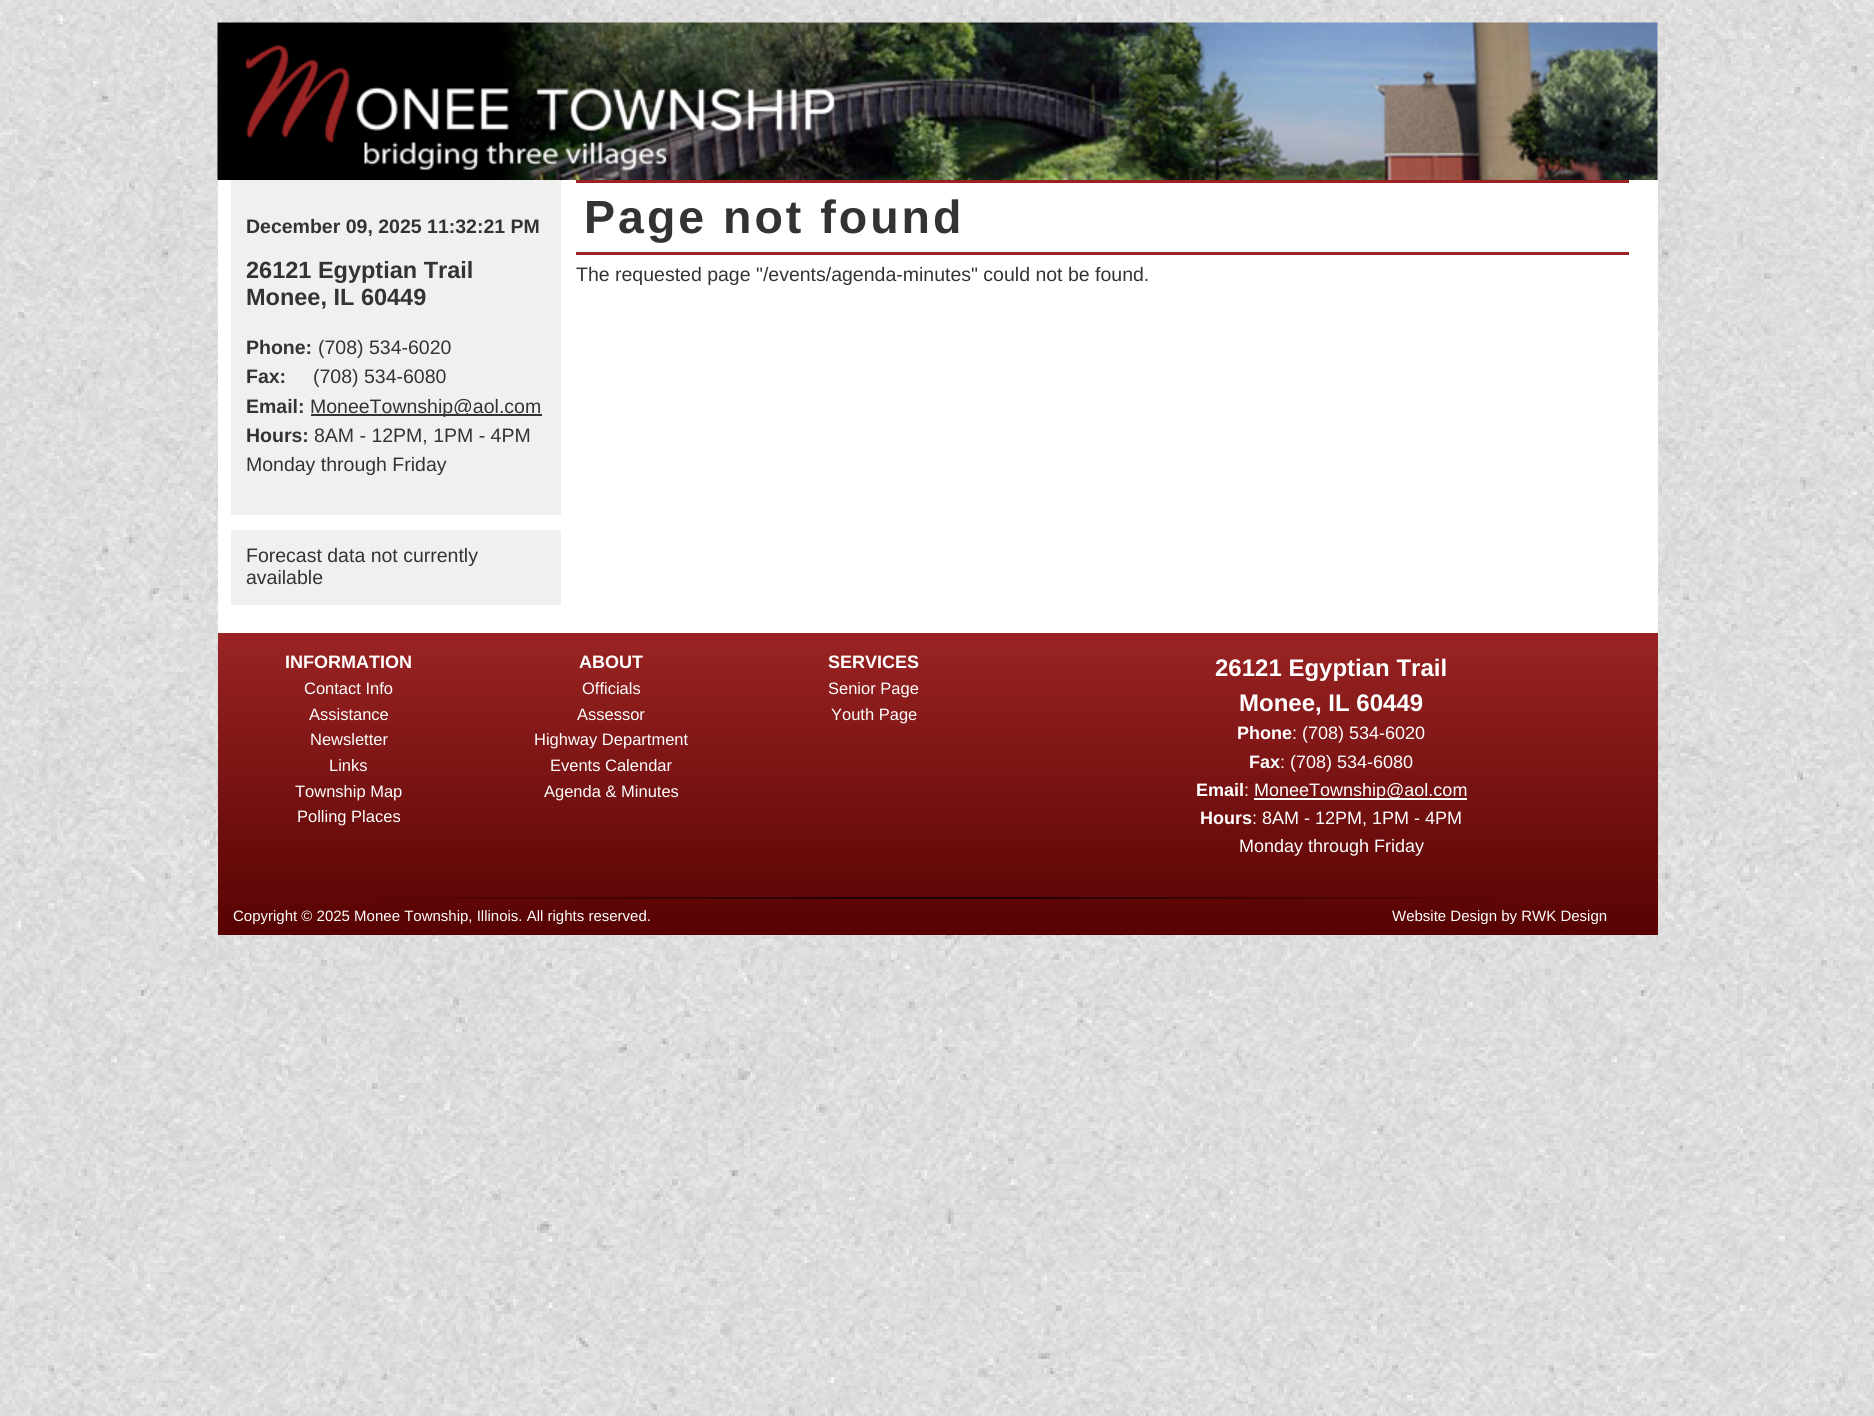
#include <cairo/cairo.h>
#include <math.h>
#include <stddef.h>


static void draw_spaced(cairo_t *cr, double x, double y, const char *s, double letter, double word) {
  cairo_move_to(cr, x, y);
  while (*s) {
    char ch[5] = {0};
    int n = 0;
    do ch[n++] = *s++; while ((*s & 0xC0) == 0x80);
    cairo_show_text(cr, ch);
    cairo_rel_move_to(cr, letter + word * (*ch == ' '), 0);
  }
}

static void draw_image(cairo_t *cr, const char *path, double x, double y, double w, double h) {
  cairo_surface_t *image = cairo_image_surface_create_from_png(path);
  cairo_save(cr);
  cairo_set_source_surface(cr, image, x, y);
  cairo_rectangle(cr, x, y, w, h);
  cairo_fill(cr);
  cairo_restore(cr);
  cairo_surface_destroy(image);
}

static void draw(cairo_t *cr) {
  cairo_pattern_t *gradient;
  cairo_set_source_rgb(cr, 1, 1, 1);
  cairo_paint(cr);
  draw_image(cr, "images/1.png", 0, 0, 1874, 1416);
  draw_image(cr, "images/2.png", 217, 22, 1441, 158);
  cairo_set_source_rgb(cr, 1, 1, 1);
  cairo_rectangle(cr, 218, 180, 1440, 453);
  cairo_fill(cr);
  cairo_set_source_rgb(cr, 153 / 255.0, 35 / 255.0, 35 / 255.0);
  cairo_rectangle(cr, 218, 633, 1440, 8);
  cairo_fill(cr);
  cairo_set_source_rgb(cr, 240 / 255.0, 240 / 255.0, 240 / 255.0);
  cairo_rectangle(cr, 231, 180, 330, 335);
  cairo_fill(cr);
  cairo_set_source_rgb(cr, 51 / 255.0, 51 / 255.0, 51 / 255.0);
  cairo_rectangle(cr, 311, 414, 231, 2);
  cairo_fill(cr);
  cairo_set_source_rgb(cr, 240 / 255.0, 240 / 255.0, 240 / 255.0);
  cairo_rectangle(cr, 231, 530, 330, 75);
  cairo_fill(cr);
  cairo_set_source_rgb(cr, 153 / 255.0, 35 / 255.0, 35 / 255.0);
  cairo_rectangle(cr, 576, 180, 1053, 3);
  cairo_fill(cr);
  cairo_rectangle(cr, 576, 252, 1053, 3);
  cairo_fill(cr);
  gradient = cairo_pattern_create_linear(938, 640, 938, 935);
  cairo_pattern_add_color_stop_rgba(gradient, 0, 153 / 255.0, 35 / 255.0, 35 / 255.0, 1);
  cairo_pattern_add_color_stop_rgba(gradient, 1, 87 / 255.0, 2 / 255.0, 2 / 255.0, 1);
  cairo_set_source(cr, gradient);
  cairo_pattern_destroy(gradient);
  cairo_rectangle(cr, 218, 641, 1440, 294);
  cairo_fill(cr);
  cairo_set_source_rgb(cr, 1, 1, 1);
  cairo_rectangle(cr, 1254, 798, 213, 2);
  cairo_fill(cr);
  gradient = cairo_pattern_create_linear(362, 898, 1514, 898);
  cairo_pattern_add_color_stop_rgba(gradient, 0, 95 / 255.0, 6 / 255.0, 6 / 255.0, 1);
  cairo_pattern_add_color_stop_rgba(gradient, 0.5, 24 / 255.0, 2 / 255.0, 2 / 255.0, 1);
  cairo_pattern_add_color_stop_rgba(gradient, 1, 95 / 255.0, 6 / 255.0, 6 / 255.0, 1);
  cairo_set_source(cr, gradient);
  cairo_pattern_destroy(gradient);
  cairo_rectangle(cr, 382, 897, 1112, 2);
  cairo_fill(cr);
  cairo_select_font_face(cr, "Liberation Sans", CAIRO_FONT_SLANT_NORMAL, CAIRO_FONT_WEIGHT_BOLD);
  cairo_set_font_size(cr, 19.5);
  cairo_set_source_rgb(cr, 51 / 255.0, 51 / 255.0, 51 / 255.0);
  cairo_move_to(cr, 246, 233);
  cairo_show_text(cr, "December 09, 2025 11:32:21 PM");
  cairo_set_font_size(cr, 23.5);
  cairo_move_to(cr, 246, 278);
  cairo_show_text(cr, "26121 Egyptian Trail");
  cairo_move_to(cr, 246, 305);
  cairo_show_text(cr, "Monee, IL 60449");
  cairo_set_font_size(cr, 19.5);
  cairo_move_to(cr, 246, 354);
  cairo_show_text(cr, "Phone:");
  cairo_select_font_face(cr, "Liberation Sans", CAIRO_FONT_SLANT_NORMAL, CAIRO_FONT_WEIGHT_NORMAL);
  cairo_move_to(cr, 318, 354);
  cairo_show_text(cr, "(708) 534-6020");
  cairo_select_font_face(cr, "Liberation Sans", CAIRO_FONT_SLANT_NORMAL, CAIRO_FONT_WEIGHT_BOLD);
  cairo_move_to(cr, 246, 383);
  cairo_show_text(cr, "Fax:");
  cairo_select_font_face(cr, "Liberation Sans", CAIRO_FONT_SLANT_NORMAL, CAIRO_FONT_WEIGHT_NORMAL);
  cairo_move_to(cr, 313, 383);
  cairo_show_text(cr, "(708) 534-6080");
  cairo_select_font_face(cr, "Liberation Sans", CAIRO_FONT_SLANT_NORMAL, CAIRO_FONT_WEIGHT_BOLD);
  cairo_move_to(cr, 246, 413);
  cairo_show_text(cr, "Email:");
  cairo_select_font_face(cr, "Liberation Sans", CAIRO_FONT_SLANT_NORMAL, CAIRO_FONT_WEIGHT_NORMAL);
  cairo_move_to(cr, 310, 413);
  cairo_show_text(cr, "MoneeTownship@aol.com");
  cairo_select_font_face(cr, "Liberation Sans", CAIRO_FONT_SLANT_NORMAL, CAIRO_FONT_WEIGHT_BOLD);
  cairo_move_to(cr, 246, 442);
  cairo_show_text(cr, "Hours:");
  cairo_select_font_face(cr, "Liberation Sans", CAIRO_FONT_SLANT_NORMAL, CAIRO_FONT_WEIGHT_NORMAL);
  cairo_move_to(cr, 314, 442);
  cairo_show_text(cr, "8AM - 12PM, 1PM - 4PM");
  cairo_move_to(cr, 246, 471);
  cairo_show_text(cr, "Monday through Friday");
  cairo_move_to(cr, 246, 562);
  cairo_show_text(cr, "Forecast data not currently");
  cairo_move_to(cr, 246, 584);
  cairo_show_text(cr, "available");
  cairo_select_font_face(cr, "Liberation Sans", CAIRO_FONT_SLANT_NORMAL, CAIRO_FONT_WEIGHT_BOLD);
  cairo_set_font_size(cr, 46.5);
  draw_spaced(cr, 584, 233, "Page not found", 3, 0);
  cairo_select_font_face(cr, "Liberation Sans", CAIRO_FONT_SLANT_NORMAL, CAIRO_FONT_WEIGHT_NORMAL);
  cairo_set_font_size(cr, 19.5);
  cairo_move_to(cr, 576, 281);
  cairo_show_text(cr, "The requested page \"/events/agenda-minutes\" could not be found.");
  cairo_select_font_face(cr, "Liberation Sans", CAIRO_FONT_SLANT_NORMAL, CAIRO_FONT_WEIGHT_BOLD);
  cairo_set_font_size(cr, 18);
  cairo_set_source_rgb(cr, 1, 1, 1);
  cairo_move_to(cr, 285, 668);
  cairo_show_text(cr, "INFORMATION");
  cairo_select_font_face(cr, "Liberation Sans", CAIRO_FONT_SLANT_NORMAL, CAIRO_FONT_WEIGHT_NORMAL);
  cairo_set_font_size(cr, 16.5);
  cairo_move_to(cr, 304, 694);
  cairo_show_text(cr, "Contact Info");
  cairo_move_to(cr, 309, 720);
  cairo_show_text(cr, "Assistance");
  cairo_move_to(cr, 310, 745);
  cairo_show_text(cr, "Newsletter");
  cairo_move_to(cr, 329, 771);
  cairo_show_text(cr, "Links");
  cairo_move_to(cr, 295, 797);
  cairo_show_text(cr, "Township Map");
  cairo_move_to(cr, 297, 822);
  cairo_show_text(cr, "Polling Places");
  cairo_select_font_face(cr, "Liberation Sans", CAIRO_FONT_SLANT_NORMAL, CAIRO_FONT_WEIGHT_BOLD);
  cairo_set_font_size(cr, 18);
  cairo_move_to(cr, 579, 668);
  cairo_show_text(cr, "ABOUT");
  cairo_select_font_face(cr, "Liberation Sans", CAIRO_FONT_SLANT_NORMAL, CAIRO_FONT_WEIGHT_NORMAL);
  cairo_set_font_size(cr, 16.5);
  cairo_move_to(cr, 582, 694);
  cairo_show_text(cr, "Officials");
  cairo_move_to(cr, 577, 720);
  cairo_show_text(cr, "Assessor");
  cairo_move_to(cr, 534, 745);
  cairo_show_text(cr, "Highway Department");
  cairo_move_to(cr, 550, 771);
  cairo_show_text(cr, "Events Calendar");
  cairo_move_to(cr, 544, 797);
  cairo_show_text(cr, "Agenda & Minutes");
  cairo_select_font_face(cr, "Liberation Sans", CAIRO_FONT_SLANT_NORMAL, CAIRO_FONT_WEIGHT_BOLD);
  cairo_set_font_size(cr, 18);
  cairo_move_to(cr, 828, 668);
  cairo_show_text(cr, "SERVICES");
  cairo_select_font_face(cr, "Liberation Sans", CAIRO_FONT_SLANT_NORMAL, CAIRO_FONT_WEIGHT_NORMAL);
  cairo_set_font_size(cr, 16.5);
  cairo_move_to(cr, 828, 694);
  cairo_show_text(cr, "Senior Page");
  cairo_move_to(cr, 831, 720);
  cairo_show_text(cr, "Youth Page");
  cairo_select_font_face(cr, "Liberation Sans", CAIRO_FONT_SLANT_NORMAL, CAIRO_FONT_WEIGHT_BOLD);
  cairo_set_font_size(cr, 24);
  cairo_move_to(cr, 1215, 676);
  cairo_show_text(cr, "26121 Egyptian Trail");
  cairo_move_to(cr, 1239, 711);
  cairo_show_text(cr, "Monee, IL 60449");
  cairo_set_font_size(cr, 18);
  cairo_move_to(cr, 1237, 739);
  cairo_show_text(cr, "Phone");
  cairo_select_font_face(cr, "Liberation Sans", CAIRO_FONT_SLANT_NORMAL, CAIRO_FONT_WEIGHT_NORMAL);
  cairo_move_to(cr, 1292, 739);
  cairo_show_text(cr, ": (708) 534-6020");
  cairo_select_font_face(cr, "Liberation Sans", CAIRO_FONT_SLANT_NORMAL, CAIRO_FONT_WEIGHT_BOLD);
  cairo_move_to(cr, 1249, 768);
  cairo_show_text(cr, "Fax");
  cairo_select_font_face(cr, "Liberation Sans", CAIRO_FONT_SLANT_NORMAL, CAIRO_FONT_WEIGHT_NORMAL);
  cairo_move_to(cr, 1280, 768);
  cairo_show_text(cr, ": (708) 534-6080");
  cairo_select_font_face(cr, "Liberation Sans", CAIRO_FONT_SLANT_NORMAL, CAIRO_FONT_WEIGHT_BOLD);
  cairo_move_to(cr, 1196, 796);
  cairo_show_text(cr, "Email");
  cairo_select_font_face(cr, "Liberation Sans", CAIRO_FONT_SLANT_NORMAL, CAIRO_FONT_WEIGHT_NORMAL);
  cairo_move_to(cr, 1244, 796);
  cairo_show_text(cr, ":");
  cairo_move_to(cr, 1254, 796);
  cairo_show_text(cr, "MoneeTownship@aol.com");
  cairo_select_font_face(cr, "Liberation Sans", CAIRO_FONT_SLANT_NORMAL, CAIRO_FONT_WEIGHT_BOLD);
  cairo_move_to(cr, 1200, 824);
  cairo_show_text(cr, "Hours");
  cairo_select_font_face(cr, "Liberation Sans", CAIRO_FONT_SLANT_NORMAL, CAIRO_FONT_WEIGHT_NORMAL);
  cairo_move_to(cr, 1252, 824);
  cairo_show_text(cr, ": 8AM - 12PM, 1PM - 4PM");
  cairo_move_to(cr, 1239, 852);
  cairo_show_text(cr, "Monday through Friday");
  cairo_set_font_size(cr, 15);
  cairo_move_to(cr, 233, 921);
  cairo_show_text(cr, "Copyright © 2025 Monee Township, Illinois. All rights reserved.");
  cairo_move_to(cr, 1392, 921);
  cairo_show_text(cr, "Website Design by RWK Design");
}

int main(void) {
  cairo_surface_t *surface = cairo_image_surface_create(CAIRO_FORMAT_RGB24, 1874, 1416);
  cairo_t *cr = cairo_create(surface);
  cairo_font_options_t *options = cairo_font_options_create();
  cairo_font_options_set_hint_metrics(options, CAIRO_HINT_METRICS_OFF);
  cairo_font_options_set_hint_style(options, CAIRO_HINT_STYLE_NONE);
  cairo_set_font_options(cr, options);
  cairo_set_miter_limit(cr, 4);
  draw(cr);
  cairo_surface_write_to_png(surface, "out.png");
  cairo_font_options_destroy(options);
  cairo_destroy(cr);
  cairo_surface_destroy(surface);
  return 0;
}
